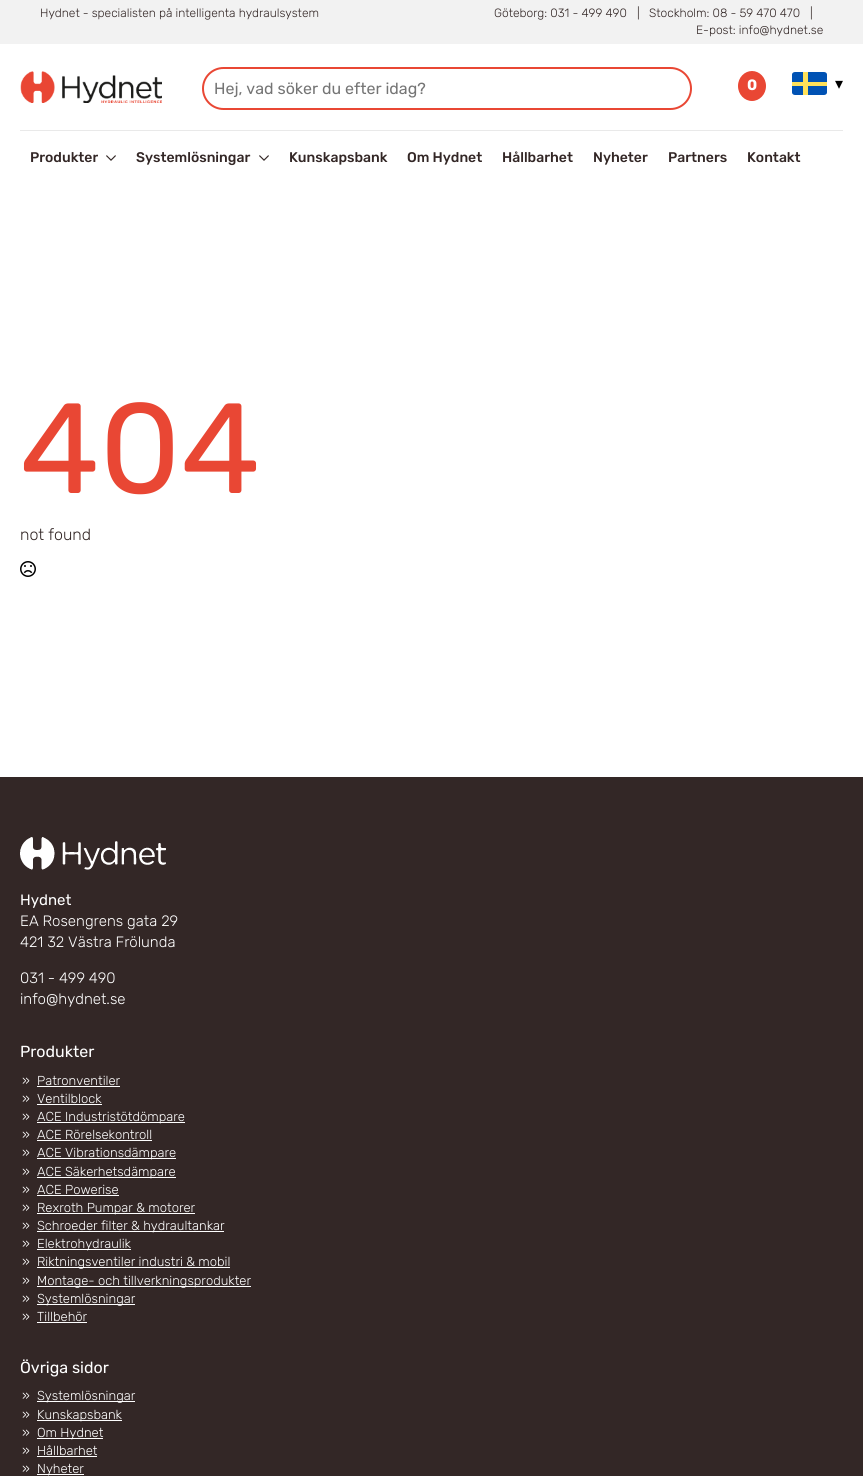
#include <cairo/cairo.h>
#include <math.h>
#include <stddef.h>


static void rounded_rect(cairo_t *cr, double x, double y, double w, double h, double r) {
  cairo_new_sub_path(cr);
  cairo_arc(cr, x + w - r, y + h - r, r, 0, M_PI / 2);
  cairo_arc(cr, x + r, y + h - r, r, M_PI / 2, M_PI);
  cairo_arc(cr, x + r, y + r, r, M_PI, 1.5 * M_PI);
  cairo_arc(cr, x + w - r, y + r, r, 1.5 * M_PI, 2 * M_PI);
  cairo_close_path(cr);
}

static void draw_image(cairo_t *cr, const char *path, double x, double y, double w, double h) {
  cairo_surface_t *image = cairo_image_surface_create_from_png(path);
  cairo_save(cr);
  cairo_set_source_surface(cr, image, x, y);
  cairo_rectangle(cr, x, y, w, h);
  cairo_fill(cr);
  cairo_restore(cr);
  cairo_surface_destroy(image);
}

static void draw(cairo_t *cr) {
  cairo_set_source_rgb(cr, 1, 1, 1);
  cairo_paint(cr);
  cairo_set_source_rgb(cr, 242 / 255.0, 242 / 255.0, 242 / 255.0);
  cairo_rectangle(cr, 0, 0, 863, 44);
  cairo_fill(cr);
  draw_image(cr, "images/1.png", 20, 71, 142, 32);
  rounded_rect(cr, 203, 68, 488, 41, 20.5);
  cairo_set_source_rgb(cr, 233 / 255.0, 71 / 255.0, 52 / 255.0);
  cairo_stroke(cr);
  cairo_new_path(cr);
  cairo_move_to(cr, 752, 71);
  cairo_curve_to(cr, 759.5, 71, 766, 77.5, 766, 86);
  cairo_curve_to(cr, 766, 94.5, 759.5, 101, 752, 101);
  cairo_curve_to(cr, 744.5, 101, 738, 94.5, 738, 86);
  cairo_curve_to(cr, 738, 77.5, 744.5, 71, 752, 71);
  cairo_close_path(cr);
  cairo_fill(cr);
  cairo_set_source_rgb(cr, 0, 82 / 255.0, 180 / 255.0);
  cairo_new_path(cr);
  cairo_move_to(cr, 795, 72);
  cairo_line_to(cr, 824, 72);
  cairo_curve_to(cr, 825.5, 72, 827, 73, 827, 74.5);
  cairo_line_to(cr, 827, 92.5);
  cairo_curve_to(cr, 827, 94, 825.5, 95, 824, 95);
  cairo_line_to(cr, 795, 95);
  cairo_curve_to(cr, 793.5, 95, 792, 94, 792, 92.5);
  cairo_line_to(cr, 792, 74.5);
  cairo_curve_to(cr, 792, 73, 793.5, 72, 795, 72);
  cairo_close_path(cr);
  cairo_fill(cr);
  cairo_set_source_rgb(cr, 1, 225 / 255.0, 90 / 255.0);
  cairo_rectangle(cr, 803, 72, 5, 23);
  cairo_fill(cr);
  cairo_rectangle(cr, 792, 82, 35, 4);
  cairo_fill(cr);
  cairo_set_source_rgb(cr, 233 / 255.0, 233 / 255.0, 233 / 255.0);
  cairo_rectangle(cr, 20, 130, 823, 1);
  cairo_fill(cr);
  draw_image(cr, "images/2.png", 106, 155, 10, 6);
  draw_image(cr, "images/2.png", 259, 155, 10, 6);
  draw_image(cr, "images/3.png", 20, 561, 16, 16);
  cairo_set_source_rgb(cr, 51 / 255.0, 39 / 255.0, 38 / 255.0);
  cairo_rectangle(cr, 0, 777, 863, 699);
  cairo_fill(cr);
  draw_image(cr, "images/4.png", 20, 837, 146, 33);
  cairo_set_source_rgb(cr, 1, 1, 1);
  cairo_rectangle(cr, 37, 1086, 83, 1);
  cairo_fill(cr);
  cairo_rectangle(cr, 37, 1104, 65, 1);
  cairo_fill(cr);
  cairo_rectangle(cr, 37, 1122, 148, 1);
  cairo_fill(cr);
  cairo_rectangle(cr, 37, 1140, 115, 1);
  cairo_fill(cr);
  cairo_rectangle(cr, 37, 1158, 139, 1);
  cairo_fill(cr);
  cairo_rectangle(cr, 37, 1177, 139, 1);
  cairo_fill(cr);
  cairo_rectangle(cr, 37, 1195, 82, 1);
  cairo_fill(cr);
  cairo_rectangle(cr, 37, 1213, 158, 1);
  cairo_fill(cr);
  cairo_rectangle(cr, 37, 1231, 187, 1);
  cairo_fill(cr);
  cairo_rectangle(cr, 37, 1249, 94, 1);
  cairo_fill(cr);
  cairo_rectangle(cr, 37, 1267, 193, 1);
  cairo_fill(cr);
  cairo_rectangle(cr, 37, 1286, 214, 1);
  cairo_fill(cr);
  cairo_rectangle(cr, 37, 1304, 98, 1);
  cairo_fill(cr);
  cairo_rectangle(cr, 37, 1322, 50, 1);
  cairo_fill(cr);
  cairo_rectangle(cr, 37, 1401, 98, 1);
  cairo_fill(cr);
  cairo_rectangle(cr, 37, 1420, 85, 1);
  cairo_fill(cr);
  cairo_rectangle(cr, 37, 1438, 66, 1);
  cairo_fill(cr);
  cairo_rectangle(cr, 37, 1456, 60, 1);
  cairo_fill(cr);
  cairo_rectangle(cr, 37, 1474, 47, 1);
  cairo_fill(cr);
  cairo_select_font_face(cr, "Rubik Light", CAIRO_FONT_SLANT_NORMAL, CAIRO_FONT_WEIGHT_NORMAL);
  cairo_set_font_size(cr, 12);
  cairo_set_source_rgb(cr, 51 / 255.0, 39 / 255.0, 38 / 255.0);
  cairo_move_to(cr, 40, 17);
  cairo_show_text(cr, "Hydnet - specialisten på intelligenta hydraulsystem");
  cairo_move_to(cr, 494, 17);
  cairo_show_text(cr, "Göteborg: 031 - 499 490");
  cairo_move_to(cr, 637, 17);
  cairo_show_text(cr, "|");
  cairo_move_to(cr, 649, 17);
  cairo_show_text(cr, "Stockholm: 08 - 59 470 470");
  cairo_move_to(cr, 810, 17);
  cairo_show_text(cr, "|");
  cairo_move_to(cr, 696, 34);
  cairo_show_text(cr, "E-post: info@hydnet.se");
  cairo_select_font_face(cr, "Rubik", CAIRO_FONT_SLANT_NORMAL, CAIRO_FONT_WEIGHT_NORMAL);
  cairo_set_font_size(cr, 16);
  cairo_set_source_rgb(cr, 117 / 255.0, 117 / 255.0, 117 / 255.0);
  cairo_move_to(cr, 214, 94);
  cairo_show_text(cr, "Hej, vad söker du efter idag?");
  cairo_select_font_face(cr, "Rubik", CAIRO_FONT_SLANT_NORMAL, CAIRO_FONT_WEIGHT_BOLD);
  cairo_set_font_size(cr, 15);
  cairo_set_source_rgb(cr, 1, 1, 1);
  cairo_move_to(cr, 747, 90);
  cairo_show_text(cr, "0");
  cairo_select_font_face(cr, "DejaVu Sans", CAIRO_FONT_SLANT_NORMAL, CAIRO_FONT_WEIGHT_NORMAL);
  cairo_set_font_size(cr, 16);
  cairo_set_source_rgb(cr, 0, 0, 0);
  cairo_move_to(cr, 835, 89);
  cairo_show_text(cr, "▾");
  cairo_select_font_face(cr, "Rubik Medium", CAIRO_FONT_SLANT_NORMAL, CAIRO_FONT_WEIGHT_NORMAL);
  cairo_set_font_size(cr, 14);
  cairo_set_source_rgb(cr, 51 / 255.0, 39 / 255.0, 38 / 255.0);
  cairo_move_to(cr, 30, 162);
  cairo_show_text(cr, "Produkter");
  cairo_move_to(cr, 136, 162);
  cairo_show_text(cr, "Systemlösningar");
  cairo_move_to(cr, 289, 162);
  cairo_show_text(cr, "Kunskapsbank");
  cairo_move_to(cr, 407, 162);
  cairo_show_text(cr, "Om Hydnet");
  cairo_move_to(cr, 502, 162);
  cairo_show_text(cr, "Hållbarhet");
  cairo_move_to(cr, 593, 162);
  cairo_show_text(cr, "Nyheter");
  cairo_move_to(cr, 668, 162);
  cairo_show_text(cr, "Partners");
  cairo_move_to(cr, 747, 162);
  cairo_show_text(cr, "Kontakt");
  cairo_select_font_face(cr, "Rubik", CAIRO_FONT_SLANT_NORMAL, CAIRO_FONT_WEIGHT_NORMAL);
  cairo_set_font_size(cr, 128);
  cairo_set_source_rgb(cr, 233 / 255.0, 71 / 255.0, 52 / 255.0);
  cairo_move_to(cr, 20, 493);
  cairo_show_text(cr, "404");
  cairo_select_font_face(cr, "Rubik Light", CAIRO_FONT_SLANT_NORMAL, CAIRO_FONT_WEIGHT_NORMAL);
  cairo_set_font_size(cr, 16);
  cairo_set_source_rgb(cr, 51 / 255.0, 39 / 255.0, 38 / 255.0);
  cairo_move_to(cr, 20, 540);
  cairo_show_text(cr, "not found");
  cairo_select_font_face(cr, "Rubik", CAIRO_FONT_SLANT_NORMAL, CAIRO_FONT_WEIGHT_NORMAL);
  cairo_set_font_size(cr, 15);
  cairo_set_source_rgb(cr, 1, 1, 1);
  cairo_move_to(cr, 20, 905);
  cairo_show_text(cr, "Hydnet");
  cairo_select_font_face(cr, "Rubik Light", CAIRO_FONT_SLANT_NORMAL, CAIRO_FONT_WEIGHT_NORMAL);
  cairo_move_to(cr, 20, 926);
  cairo_show_text(cr, "EA Rosengrens gata 29");
  cairo_move_to(cr, 20, 947);
  cairo_show_text(cr, "421 32 Västra Frölunda");
  cairo_move_to(cr, 20, 983);
  cairo_show_text(cr, "031 - 499 490");
  cairo_move_to(cr, 20, 1004);
  cairo_show_text(cr, "info@hydnet.se");
  cairo_select_font_face(cr, "Rubik", CAIRO_FONT_SLANT_NORMAL, CAIRO_FONT_WEIGHT_NORMAL);
  cairo_set_font_size(cr, 16);
  cairo_move_to(cr, 20, 1057);
  cairo_show_text(cr, "Produkter");
  cairo_select_font_face(cr, "Rubik Light", CAIRO_FONT_SLANT_NORMAL, CAIRO_FONT_WEIGHT_NORMAL);
  cairo_set_font_size(cr, 13);
  cairo_move_to(cr, 22, 1085);
  cairo_show_text(cr, "»");
  cairo_move_to(cr, 37, 1085);
  cairo_show_text(cr, "Patronventiler");
  cairo_move_to(cr, 22, 1103);
  cairo_show_text(cr, "»");
  cairo_move_to(cr, 37, 1103);
  cairo_show_text(cr, "Ventilblock");
  cairo_move_to(cr, 22, 1121);
  cairo_show_text(cr, "»");
  cairo_move_to(cr, 37, 1121);
  cairo_show_text(cr, "ACE Industristötdömpare");
  cairo_move_to(cr, 22, 1139);
  cairo_show_text(cr, "»");
  cairo_move_to(cr, 37, 1139);
  cairo_show_text(cr, "ACE Rörelsekontroll");
  cairo_move_to(cr, 22, 1157);
  cairo_show_text(cr, "»");
  cairo_move_to(cr, 37, 1157);
  cairo_show_text(cr, "ACE Vibrationsdämpare");
  cairo_move_to(cr, 22, 1176);
  cairo_show_text(cr, "»");
  cairo_move_to(cr, 37, 1176);
  cairo_show_text(cr, "ACE Säkerhetsdämpare");
  cairo_move_to(cr, 22, 1194);
  cairo_show_text(cr, "»");
  cairo_move_to(cr, 37, 1194);
  cairo_show_text(cr, "ACE Powerise");
  cairo_move_to(cr, 22, 1212);
  cairo_show_text(cr, "»");
  cairo_move_to(cr, 37, 1212);
  cairo_show_text(cr, "Rexroth Pumpar & motorer");
  cairo_move_to(cr, 22, 1230);
  cairo_show_text(cr, "»");
  cairo_move_to(cr, 37, 1230);
  cairo_show_text(cr, "Schroeder filter & hydraultankar");
  cairo_move_to(cr, 22, 1248);
  cairo_show_text(cr, "»");
  cairo_move_to(cr, 37, 1248);
  cairo_show_text(cr, "Elektrohydraulik");
  cairo_move_to(cr, 22, 1266);
  cairo_show_text(cr, "»");
  cairo_move_to(cr, 37, 1266);
  cairo_show_text(cr, "Riktningsventiler industri & mobil");
  cairo_move_to(cr, 22, 1285);
  cairo_show_text(cr, "»");
  cairo_move_to(cr, 37, 1285);
  cairo_show_text(cr, "Montage- och tillverkningsprodukter");
  cairo_move_to(cr, 22, 1303);
  cairo_show_text(cr, "»");
  cairo_move_to(cr, 37, 1303);
  cairo_show_text(cr, "Systemlösningar");
  cairo_move_to(cr, 22, 1321);
  cairo_show_text(cr, "»");
  cairo_move_to(cr, 37, 1321);
  cairo_show_text(cr, "Tillbehör");
  cairo_select_font_face(cr, "Rubik", CAIRO_FONT_SLANT_NORMAL, CAIRO_FONT_WEIGHT_NORMAL);
  cairo_set_font_size(cr, 16);
  cairo_move_to(cr, 20, 1373);
  cairo_show_text(cr, "Övriga sidor");
  cairo_select_font_face(cr, "Rubik Light", CAIRO_FONT_SLANT_NORMAL, CAIRO_FONT_WEIGHT_NORMAL);
  cairo_set_font_size(cr, 13);
  cairo_move_to(cr, 22, 1400);
  cairo_show_text(cr, "»");
  cairo_move_to(cr, 37, 1400);
  cairo_show_text(cr, "Systemlösningar");
  cairo_move_to(cr, 22, 1419);
  cairo_show_text(cr, "»");
  cairo_move_to(cr, 37, 1419);
  cairo_show_text(cr, "Kunskapsbank");
  cairo_move_to(cr, 22, 1437);
  cairo_show_text(cr, "»");
  cairo_move_to(cr, 37, 1437);
  cairo_show_text(cr, "Om Hydnet");
  cairo_move_to(cr, 22, 1455);
  cairo_show_text(cr, "»");
  cairo_move_to(cr, 37, 1455);
  cairo_show_text(cr, "Hållbarhet");
  cairo_move_to(cr, 22, 1473);
  cairo_show_text(cr, "»");
  cairo_move_to(cr, 37, 1473);
  cairo_show_text(cr, "Nyheter");
}

int main(void) {
  cairo_surface_t *surface = cairo_image_surface_create(CAIRO_FORMAT_RGB24, 863, 1476);
  cairo_t *cr = cairo_create(surface);
  cairo_font_options_t *options = cairo_font_options_create();
  cairo_font_options_set_hint_metrics(options, CAIRO_HINT_METRICS_OFF);
  cairo_font_options_set_hint_style(options, CAIRO_HINT_STYLE_NONE);
  cairo_set_font_options(cr, options);
  cairo_set_miter_limit(cr, 4);
  draw(cr);
  cairo_surface_write_to_png(surface, "out.png");
  cairo_font_options_destroy(options);
  cairo_destroy(cr);
  cairo_surface_destroy(surface);
  return 0;
}
